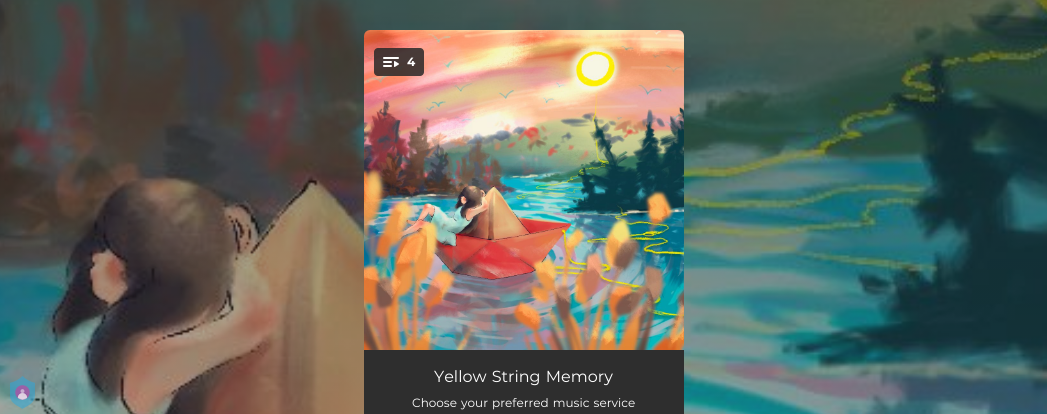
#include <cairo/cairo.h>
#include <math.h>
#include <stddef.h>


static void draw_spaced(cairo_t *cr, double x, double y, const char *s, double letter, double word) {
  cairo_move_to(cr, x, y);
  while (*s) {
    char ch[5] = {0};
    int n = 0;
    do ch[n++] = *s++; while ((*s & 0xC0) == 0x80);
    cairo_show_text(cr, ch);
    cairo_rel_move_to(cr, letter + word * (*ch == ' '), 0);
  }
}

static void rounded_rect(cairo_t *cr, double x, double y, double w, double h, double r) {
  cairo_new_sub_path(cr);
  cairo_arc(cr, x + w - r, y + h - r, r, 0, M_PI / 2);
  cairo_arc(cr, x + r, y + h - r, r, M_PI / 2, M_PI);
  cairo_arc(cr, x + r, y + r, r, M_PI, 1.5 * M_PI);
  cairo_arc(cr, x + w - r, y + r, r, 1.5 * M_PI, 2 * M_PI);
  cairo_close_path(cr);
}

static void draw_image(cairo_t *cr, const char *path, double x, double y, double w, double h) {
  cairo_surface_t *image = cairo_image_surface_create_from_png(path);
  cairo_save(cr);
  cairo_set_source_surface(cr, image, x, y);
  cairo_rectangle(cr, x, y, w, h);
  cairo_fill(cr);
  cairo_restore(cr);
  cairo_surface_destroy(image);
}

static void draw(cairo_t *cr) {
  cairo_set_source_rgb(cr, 1, 1, 1);
  cairo_paint(cr);
  draw_image(cr, "images/2.png", 0, 0, 1047, 414);
  draw_image(cr, "images/1.png", 10, 376, 25, 33);
  draw_image(cr, "images/3.png", 364, 30, 320, 320);
  cairo_set_source_rgba(cr, 40 / 255.0, 40 / 255.0, 40 / 255.0, 0.85);
  rounded_rect(cr, 374, 48, 50, 28, 4);
  cairo_fill(cr);
  draw_image(cr, "images/4.png", 383, 57, 16, 10);
  cairo_set_source_rgb(cr, 46 / 255.0, 46 / 255.0, 46 / 255.0);
  cairo_rectangle(cr, 364, 350, 320, 64);
  cairo_fill(cr);
  cairo_select_font_face(cr, "Montserrat", CAIRO_FONT_SLANT_NORMAL, CAIRO_FONT_WEIGHT_BOLD);
  cairo_set_font_size(cr, 12);
  cairo_set_source_rgb(cr, 1, 1, 1);
  cairo_move_to(cr, 407, 66);
  cairo_show_text(cr, "4");
  cairo_select_font_face(cr, "Montserrat", CAIRO_FONT_SLANT_NORMAL, CAIRO_FONT_WEIGHT_NORMAL);
  cairo_set_font_size(cr, 16);
  draw_spaced(cr, 434, 382, "Yellow String Memory", 0, 1);
  cairo_set_font_size(cr, 12);
  draw_spaced(cr, 412, 407, "Choose your preferred music service", 0, 1);
}

int main(void) {
  cairo_surface_t *surface = cairo_image_surface_create(CAIRO_FORMAT_RGB24, 1047, 414);
  cairo_t *cr = cairo_create(surface);
  cairo_font_options_t *options = cairo_font_options_create();
  cairo_font_options_set_hint_metrics(options, CAIRO_HINT_METRICS_OFF);
  cairo_font_options_set_hint_style(options, CAIRO_HINT_STYLE_NONE);
  cairo_set_font_options(cr, options);
  cairo_set_miter_limit(cr, 4);
  draw(cr);
  cairo_surface_write_to_png(surface, "out.png");
  cairo_font_options_destroy(options);
  cairo_destroy(cr);
  cairo_surface_destroy(surface);
  return 0;
}
